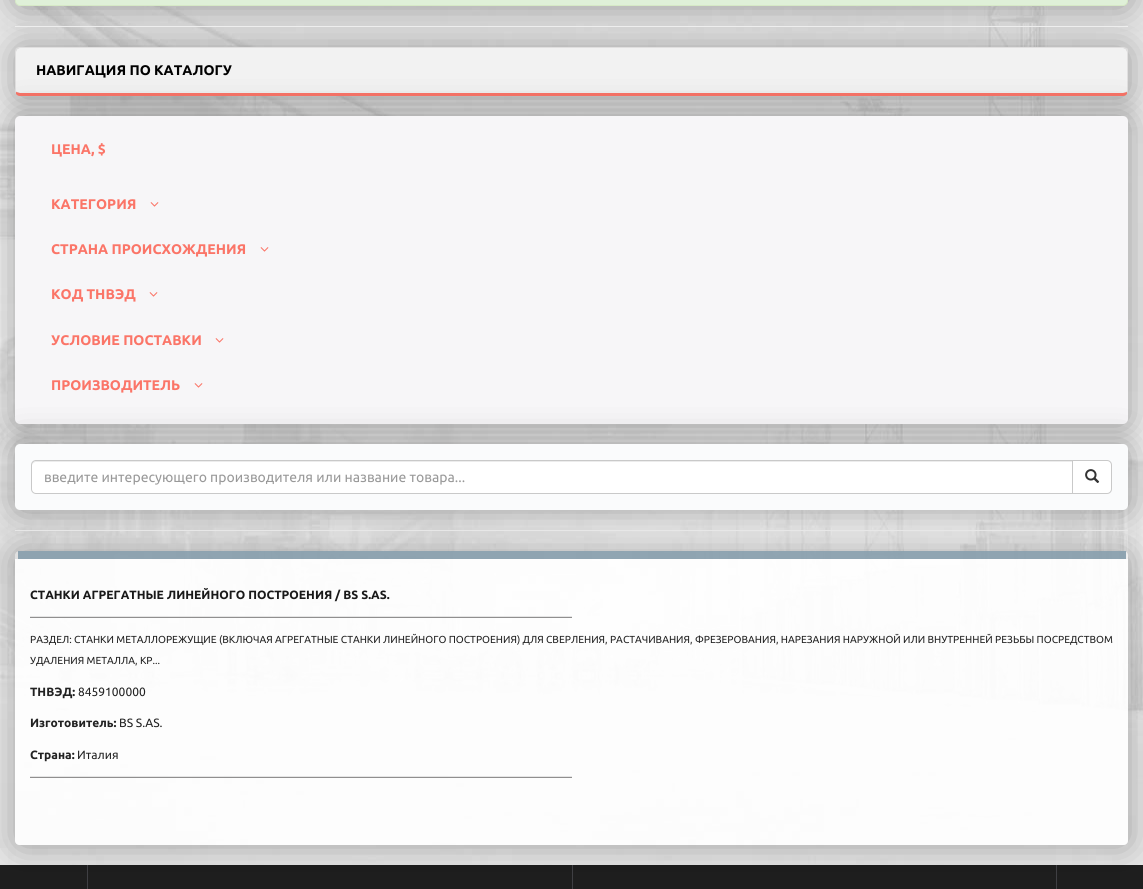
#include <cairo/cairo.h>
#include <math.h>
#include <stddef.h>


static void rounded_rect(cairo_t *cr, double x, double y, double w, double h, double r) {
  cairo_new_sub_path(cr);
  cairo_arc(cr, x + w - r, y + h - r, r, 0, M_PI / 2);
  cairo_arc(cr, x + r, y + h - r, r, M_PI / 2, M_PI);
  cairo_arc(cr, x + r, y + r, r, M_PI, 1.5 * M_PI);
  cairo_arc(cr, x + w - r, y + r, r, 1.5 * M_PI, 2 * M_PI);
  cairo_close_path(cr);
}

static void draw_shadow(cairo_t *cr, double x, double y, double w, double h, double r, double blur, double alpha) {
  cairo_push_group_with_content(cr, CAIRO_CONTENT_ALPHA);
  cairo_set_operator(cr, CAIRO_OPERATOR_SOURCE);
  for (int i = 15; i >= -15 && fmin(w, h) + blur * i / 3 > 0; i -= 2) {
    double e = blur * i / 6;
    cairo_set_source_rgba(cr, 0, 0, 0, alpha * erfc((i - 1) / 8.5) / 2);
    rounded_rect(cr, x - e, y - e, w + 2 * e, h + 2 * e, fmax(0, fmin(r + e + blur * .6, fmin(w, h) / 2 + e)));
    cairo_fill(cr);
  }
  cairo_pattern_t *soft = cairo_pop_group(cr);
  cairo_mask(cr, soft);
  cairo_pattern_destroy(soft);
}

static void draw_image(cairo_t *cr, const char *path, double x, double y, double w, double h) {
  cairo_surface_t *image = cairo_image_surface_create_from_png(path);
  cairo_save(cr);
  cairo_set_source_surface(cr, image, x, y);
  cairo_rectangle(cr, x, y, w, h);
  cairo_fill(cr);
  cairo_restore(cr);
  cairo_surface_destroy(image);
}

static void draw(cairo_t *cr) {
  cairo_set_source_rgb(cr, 1, 1, 1);
  cairo_paint(cr);
  draw_image(cr, "images/1.png", 0, 0, 1143, 865);
  cairo_set_source_rgb(cr, 0, 0, 0);
  draw_shadow(cr, 16, -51, 1113, 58, 5, 17.5, 0.35);
  cairo_set_source_rgb(cr, 223 / 255.0, 240 / 255.0, 216 / 255.0);
  rounded_rect(cr, 15.5, -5.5, 1112, 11, 4.5);
  cairo_fill_preserve(cr);
  cairo_set_source_rgb(cr, 214 / 255.0, 233 / 255.0, 198 / 255.0);
  cairo_set_line_width(cr, 1);
  cairo_stroke(cr);
  cairo_set_source_rgb(cr, 0, 0, 0);
  draw_shadow(cr, 16, 48, 1113, 49, 5, 17.5, 0.35);
  cairo_set_source_rgb(cr, 238 / 255.0, 238 / 255.0, 238 / 255.0);
  cairo_rectangle(cr, 15, 26, 1113, 1);
  cairo_fill(cr);
  cairo_set_source_rgb(cr, 242 / 255.0, 242 / 255.0, 242 / 255.0);
  cairo_new_path(cr);
  cairo_move_to(cr, 20, 48);
  cairo_line_to(cr, 1123, 48);
  cairo_curve_to(cr, 1125, 48, 1127, 50, 1127, 52);
  cairo_line_to(cr, 1127, 91);
  cairo_curve_to(cr, 1127, 92, 1125, 93, 1123, 93);
  cairo_line_to(cr, 20, 93);
  cairo_curve_to(cr, 18, 93, 16, 92, 16, 91);
  cairo_line_to(cr, 16, 52);
  cairo_curve_to(cr, 16, 50, 18, 48, 20, 48);
  cairo_close_path(cr);
  cairo_fill(cr);
  cairo_set_source_rgb(cr, 224 / 255.0, 223 / 255.0, 223 / 255.0);
  cairo_new_path(cr);
  cairo_move_to(cr, 20, 47);
  cairo_curve_to(cr, 18, 47, 17, 48, 16, 48);
  cairo_line_to(cr, 17, 49);
  cairo_line_to(cr, 20, 48);
  cairo_line_to(cr, 1123, 48);
  cairo_line_to(cr, 1126, 49);
  cairo_line_to(cr, 1127, 48);
  cairo_curve_to(cr, 1126, 48, 1124, 47, 1123, 47);
  cairo_close_path(cr);
  cairo_fill(cr);
  cairo_new_path(cr);
  cairo_move_to(cr, 1128, 91);
  cairo_line_to(cr, 1128, 52);
  cairo_curve_to(cr, 1128, 50, 1128, 49, 1127, 48);
  cairo_line_to(cr, 1126, 49);
  cairo_line_to(cr, 1127, 52);
  cairo_curve_to(cr, 1127, 55, 1127, 91, 1127, 92);
  cairo_line_to(cr, 1127, 94);
  cairo_close_path(cr);
  cairo_fill(cr);
  cairo_set_source_rgb(cr, 251 / 255.0, 117 / 255.0, 104 / 255.0);
  cairo_new_path(cr);
  cairo_move_to(cr, 20, 96);
  cairo_line_to(cr, 1123, 96);
  cairo_curve_to(cr, 1125, 96, 1126, 95, 1127, 94);
  cairo_line_to(cr, 1127, 92);
  cairo_line_to(cr, 1123, 93);
  cairo_line_to(cr, 20, 93);
  cairo_line_to(cr, 16, 92);
  cairo_line_to(cr, 16, 94);
  cairo_curve_to(cr, 17, 95, 18, 96, 20, 96);
  cairo_close_path(cr);
  cairo_fill(cr);
  cairo_set_source_rgb(cr, 224 / 255.0, 223 / 255.0, 223 / 255.0);
  cairo_new_path(cr);
  cairo_move_to(cr, 15, 52);
  cairo_line_to(cr, 15, 91);
  cairo_line_to(cr, 16, 94);
  cairo_line_to(cr, 16, 92);
  cairo_curve_to(cr, 16, 91, 16, 55, 16, 52);
  cairo_line_to(cr, 17, 49);
  cairo_line_to(cr, 16, 48);
  cairo_curve_to(cr, 16, 49, 15, 50, 15, 52);
  cairo_close_path(cr);
  cairo_fill(cr);
  cairo_set_source_rgb(cr, 0, 0, 0);
  draw_shadow(cr, 16, 117, 1113, 308, 5, 17.5, 0.35);
  cairo_set_source_rgb(cr, 247 / 255.0, 246 / 255.0, 248 / 255.0);
  rounded_rect(cr, 15, 116, 1113, 308, 5);
  cairo_fill(cr);
  draw_image(cr, "images/2.png", 150, 202, 9, 5);
  draw_image(cr, "images/2.png", 260, 247, 9, 5);
  draw_image(cr, "images/2.png", 149, 292, 9, 5);
  draw_image(cr, "images/2.png", 215, 338, 9, 5);
  draw_image(cr, "images/2.png", 194, 383, 9, 5);
  cairo_set_source_rgb(cr, 0, 0, 0);
  draw_shadow(cr, 16, 445, 1113, 66, 5, 17.5, 0.35);
  cairo_set_source_rgb(cr, 250 / 255.0, 251 / 255.0, 252 / 255.0);
  rounded_rect(cr, 15, 444, 1113, 66, 5);
  cairo_fill(cr);
  cairo_set_source_rgb(cr, 1, 1, 1);
  cairo_new_path(cr);
  cairo_move_to(cr, 36, 460);
  cairo_line_to(cr, 1073, 460);
  cairo_line_to(cr, 1073, 494);
  cairo_line_to(cr, 36, 494);
  cairo_curve_to(cr, 33, 494, 31, 492, 31, 489);
  cairo_line_to(cr, 31, 465);
  cairo_curve_to(cr, 31, 462, 33, 460, 36, 460);
  cairo_close_path(cr);
  cairo_fill(cr);
  cairo_set_source_rgb(cr, 236 / 255.0, 236 / 255.0, 236 / 255.0);
  cairo_new_path(cr);
  cairo_move_to(cr, 36, 462);
  cairo_line_to(cr, 1072, 462);
  cairo_line_to(cr, 1072, 461);
  cairo_line_to(cr, 36, 461);
  cairo_curve_to(cr, 33, 461, 32, 463, 32, 466);
  cairo_curve_to(cr, 32, 464, 34, 462, 36, 462);
  cairo_close_path(cr);
  cairo_fill(cr);
  cairo_new_path(cr);
  cairo_move_to(cr, 36, 460.5);
  cairo_line_to(cr, 1072.5, 460.5);
  cairo_line_to(cr, 1072.5, 493.5);
  cairo_line_to(cr, 36, 493.5);
  cairo_curve_to(cr, 33.5, 493.5, 31.5, 491.5, 31.5, 489);
  cairo_line_to(cr, 31.5, 465);
  cairo_curve_to(cr, 31.5, 462.5, 33.5, 460.5, 36, 460.5);
  cairo_close_path(cr);
  cairo_set_source_rgb(cr, 201 / 255.0, 201 / 255.0, 201 / 255.0);
  cairo_stroke(cr);
  cairo_set_source_rgb(cr, 1, 1, 1);
  cairo_new_path(cr);
  cairo_move_to(cr, 1072.5, 460.5);
  cairo_line_to(cr, 1107, 460.5);
  cairo_curve_to(cr, 1109.5, 460.5, 1111.5, 462.5, 1111.5, 465);
  cairo_line_to(cr, 1111.5, 489);
  cairo_curve_to(cr, 1111.5, 491.5, 1109.5, 493.5, 1107, 493.5);
  cairo_line_to(cr, 1072.5, 493.5);
  cairo_close_path(cr);
  cairo_fill_preserve(cr);
  cairo_set_source_rgb(cr, 201 / 255.0, 201 / 255.0, 201 / 255.0);
  cairo_stroke(cr);
  draw_image(cr, "images/3.png", 1085, 469, 15, 14);
  cairo_set_source_rgb(cr, 238 / 255.0, 238 / 255.0, 238 / 255.0);
  cairo_rectangle(cr, 15, 530, 1113, 1);
  cairo_fill(cr);
  cairo_set_source_rgb(cr, 30 / 255.0, 30 / 255.0, 30 / 255.0);
  cairo_rectangle(cr, 0, 865, 1143, 24);
  cairo_fill(cr);
  cairo_save(cr);
  cairo_set_fill_rule(cr, CAIRO_FILL_RULE_EVEN_ODD);
  cairo_new_path(cr);
  cairo_move_to(cr, 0, 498);
  cairo_line_to(cr, 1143, 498);
  cairo_line_to(cr, 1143, 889);
  cairo_line_to(cr, 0, 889);
  cairo_close_path(cr);
  cairo_move_to(cr, 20, 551);
  cairo_line_to(cr, 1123, 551);
  cairo_curve_to(cr, 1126, 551, 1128, 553, 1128, 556);
  cairo_line_to(cr, 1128, 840);
  cairo_curve_to(cr, 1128, 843, 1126, 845, 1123, 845);
  cairo_line_to(cr, 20, 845);
  cairo_curve_to(cr, 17, 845, 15, 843, 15, 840);
  cairo_line_to(cr, 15, 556);
  cairo_curve_to(cr, 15, 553, 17, 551, 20, 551);
  cairo_close_path(cr);
  cairo_clip(cr);
  cairo_set_source_rgb(cr, 0, 0, 0);
  draw_shadow(cr, 16, 552, 1113, 294, 5, 17.5, 0.32);
  cairo_restore(cr);
  cairo_set_source_rgba(cr, 1, 1, 1, 0.9);
  cairo_new_path(cr);
  cairo_move_to(cr, 20, 559);
  cairo_line_to(cr, 1128, 559);
  cairo_line_to(cr, 1128, 840);
  cairo_curve_to(cr, 1128, 843, 1126, 845, 1123, 845);
  cairo_line_to(cr, 20, 845);
  cairo_curve_to(cr, 17, 845, 15, 843, 15, 840);
  cairo_line_to(cr, 15, 559);
  cairo_close_path(cr);
  cairo_fill(cr);
  cairo_set_source_rgba(cr, 133 / 255.0, 157 / 255.0, 171 / 255.0, 0.9);
  cairo_rectangle(cr, 18, 551, 1108, 8);
  cairo_fill(cr);
  cairo_set_source_rgb(cr, 144 / 255.0, 143 / 255.0, 143 / 255.0);
  cairo_rectangle(cr, 30, 617, 542, 1);
  cairo_fill(cr);
  cairo_set_source_rgb(cr, 229 / 255.0, 229 / 255.0, 229 / 255.0);
  cairo_rectangle(cr, 30, 616, 542, 1);
  cairo_fill(cr);
  cairo_set_source_rgb(cr, 144 / 255.0, 143 / 255.0, 143 / 255.0);
  cairo_rectangle(cr, 30, 777, 542, 1);
  cairo_fill(cr);
  cairo_set_source_rgb(cr, 229 / 255.0, 229 / 255.0, 229 / 255.0);
  cairo_rectangle(cr, 30, 776, 542, 1);
  cairo_fill(cr);
  cairo_set_source_rgb(cr, 63 / 255.0, 63 / 255.0, 67 / 255.0);
  cairo_rectangle(cr, 87, 865, 1, 24);
  cairo_fill(cr);
  cairo_rectangle(cr, 1056, 865, 1, 24);
  cairo_fill(cr);
  cairo_rectangle(cr, 572, 865, 1, 24);
  cairo_fill(cr);
  cairo_select_font_face(cr, "Ubuntu", CAIRO_FONT_SLANT_NORMAL, CAIRO_FONT_WEIGHT_BOLD);
  cairo_set_font_size(cr, 14);
  cairo_set_source_rgb(cr, 1 / 255.0, 1 / 255.0, 1 / 255.0);
  cairo_move_to(cr, 36, 75);
  cairo_show_text(cr, "НАВИГАЦИЯ ПО КАТАЛОГУ");
  cairo_set_source_rgb(cr, 251 / 255.0, 117 / 255.0, 104 / 255.0);
  cairo_move_to(cr, 51, 154);
  cairo_show_text(cr, "ЦЕНА, $");
  cairo_move_to(cr, 51, 209);
  cairo_show_text(cr, "КАТЕГОРИЯ");
  cairo_move_to(cr, 51, 254);
  cairo_show_text(cr, "СТРАНА ПРОИСХОЖДЕНИЯ");
  cairo_move_to(cr, 51, 299);
  cairo_show_text(cr, "КОД ТНВЭД");
  cairo_move_to(cr, 51, 345);
  cairo_show_text(cr, "УСЛОВИЕ ПОСТАВКИ");
  cairo_move_to(cr, 51, 390);
  cairo_show_text(cr, "ПРОИЗВОДИТЕЛЬ");
  cairo_select_font_face(cr, "Ubuntu", CAIRO_FONT_SLANT_NORMAL, CAIRO_FONT_WEIGHT_NORMAL);
  cairo_set_source_rgb(cr, 153 / 255.0, 153 / 255.0, 153 / 255.0);
  cairo_move_to(cr, 44, 482);
  cairo_show_text(cr, "введите интересующего производителя или название товара...");
  cairo_select_font_face(cr, "Ubuntu", CAIRO_FONT_SLANT_NORMAL, CAIRO_FONT_WEIGHT_BOLD);
  cairo_set_font_size(cr, 12);
  cairo_set_source_rgb(cr, 25 / 255.0, 25 / 255.0, 25 / 255.0);
  cairo_move_to(cr, 30, 599);
  cairo_show_text(cr, "СТАНКИ АГРЕГАТНЫЕ ЛИНЕЙНОГО ПОСТРОЕНИЯ / BS S.AS.");
  cairo_select_font_face(cr, "Ubuntu", CAIRO_FONT_SLANT_NORMAL, CAIRO_FONT_WEIGHT_NORMAL);
  cairo_set_font_size(cr, 10.2);
  cairo_set_source_rgb(cr, 34 / 255.0, 34 / 255.0, 34 / 255.0);
  cairo_move_to(cr, 30, 643);
  cairo_show_text(cr, "РАЗДЕЛ: СТАНКИ МЕТАЛЛОРЕЖУЩИЕ (ВКЛЮЧАЯ АГРЕГАТНЫЕ СТАНКИ ЛИНЕЙНОГО ПОСТРОЕНИЯ) ДЛЯ СВЕРЛЕНИЯ, РАСТАЧИВАНИЯ, ФРЕЗЕРОВАНИЯ, НАРЕЗАНИЯ НАРУЖНОЙ ИЛИ ВНУТРЕННЕЙ РЕЗЬБЫ ПОСРЕДСТВОМ");
  cairo_move_to(cr, 30, 664);
  cairo_show_text(cr, "УДАЛЕНИЯ МЕТАЛЛА, КР...");
  cairo_select_font_face(cr, "Ubuntu", CAIRO_FONT_SLANT_NORMAL, CAIRO_FONT_WEIGHT_BOLD);
  cairo_set_font_size(cr, 12);
  cairo_move_to(cr, 30, 696);
  cairo_show_text(cr, "ТНВЭД:");
  cairo_select_font_face(cr, "Ubuntu", CAIRO_FONT_SLANT_NORMAL, CAIRO_FONT_WEIGHT_NORMAL);
  cairo_move_to(cr, 78, 696);
  cairo_show_text(cr, "8459100000");
  cairo_select_font_face(cr, "Ubuntu", CAIRO_FONT_SLANT_NORMAL, CAIRO_FONT_WEIGHT_BOLD);
  cairo_move_to(cr, 30, 727);
  cairo_show_text(cr, "Изготовитель:");
  cairo_select_font_face(cr, "Ubuntu", CAIRO_FONT_SLANT_NORMAL, CAIRO_FONT_WEIGHT_NORMAL);
  cairo_move_to(cr, 119, 727);
  cairo_show_text(cr, "BS S.AS.");
  cairo_select_font_face(cr, "Ubuntu", CAIRO_FONT_SLANT_NORMAL, CAIRO_FONT_WEIGHT_BOLD);
  cairo_move_to(cr, 30, 759);
  cairo_show_text(cr, "Страна:");
  cairo_select_font_face(cr, "Ubuntu", CAIRO_FONT_SLANT_NORMAL, CAIRO_FONT_WEIGHT_NORMAL);
  cairo_move_to(cr, 77, 759);
  cairo_show_text(cr, "Италия");
}

int main(void) {
  cairo_surface_t *surface = cairo_image_surface_create(CAIRO_FORMAT_RGB24, 1143, 889);
  cairo_t *cr = cairo_create(surface);
  cairo_font_options_t *options = cairo_font_options_create();
  cairo_font_options_set_hint_metrics(options, CAIRO_HINT_METRICS_OFF);
  cairo_font_options_set_hint_style(options, CAIRO_HINT_STYLE_NONE);
  cairo_set_font_options(cr, options);
  cairo_set_miter_limit(cr, 4);
  draw(cr);
  cairo_surface_write_to_png(surface, "out.png");
  cairo_font_options_destroy(options);
  cairo_destroy(cr);
  cairo_surface_destroy(surface);
  return 0;
}
